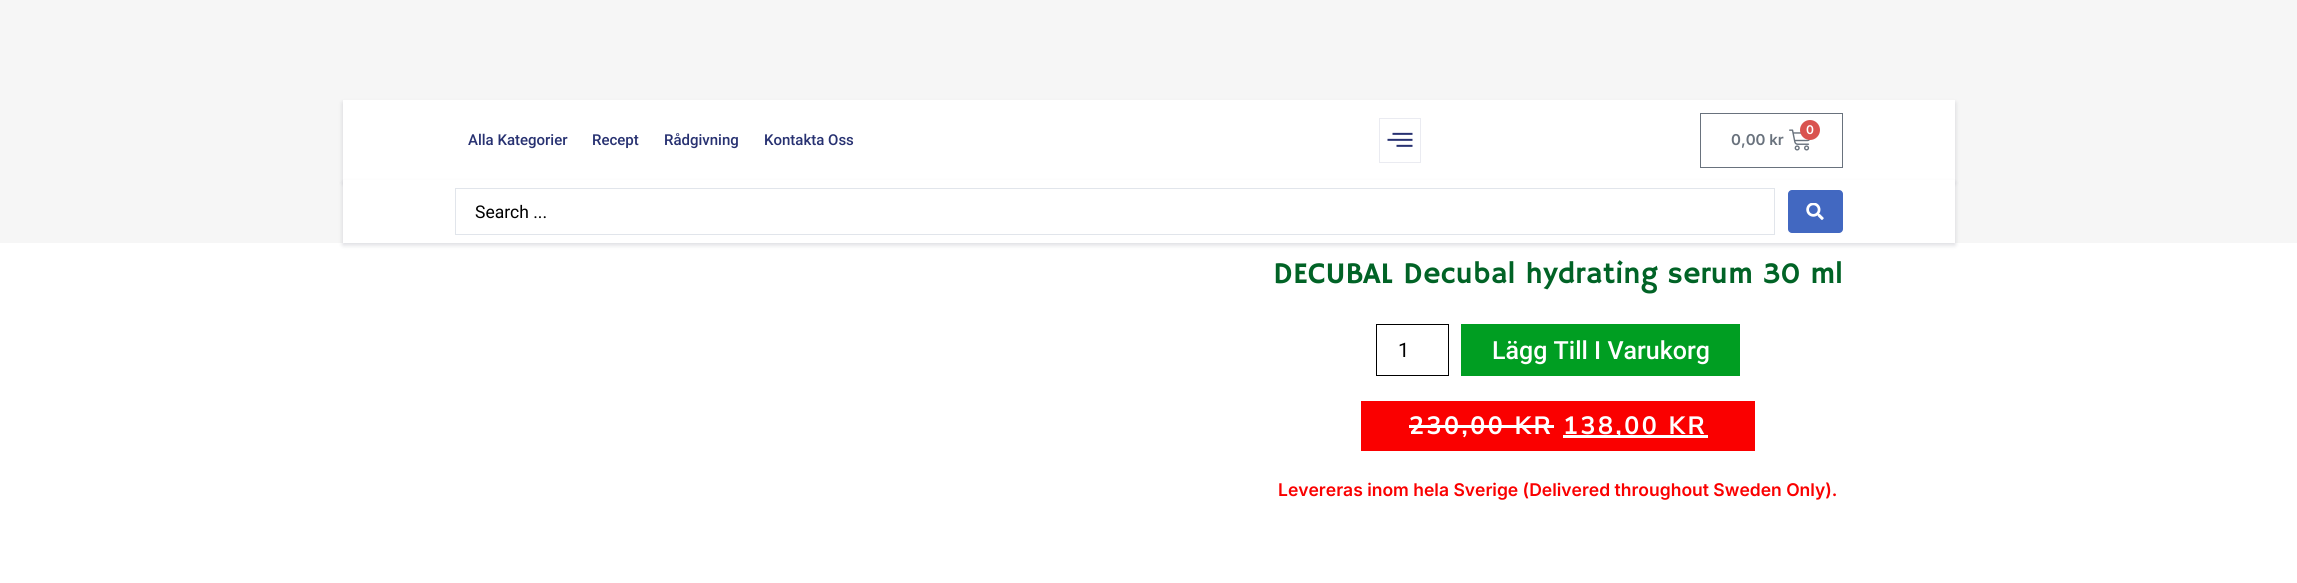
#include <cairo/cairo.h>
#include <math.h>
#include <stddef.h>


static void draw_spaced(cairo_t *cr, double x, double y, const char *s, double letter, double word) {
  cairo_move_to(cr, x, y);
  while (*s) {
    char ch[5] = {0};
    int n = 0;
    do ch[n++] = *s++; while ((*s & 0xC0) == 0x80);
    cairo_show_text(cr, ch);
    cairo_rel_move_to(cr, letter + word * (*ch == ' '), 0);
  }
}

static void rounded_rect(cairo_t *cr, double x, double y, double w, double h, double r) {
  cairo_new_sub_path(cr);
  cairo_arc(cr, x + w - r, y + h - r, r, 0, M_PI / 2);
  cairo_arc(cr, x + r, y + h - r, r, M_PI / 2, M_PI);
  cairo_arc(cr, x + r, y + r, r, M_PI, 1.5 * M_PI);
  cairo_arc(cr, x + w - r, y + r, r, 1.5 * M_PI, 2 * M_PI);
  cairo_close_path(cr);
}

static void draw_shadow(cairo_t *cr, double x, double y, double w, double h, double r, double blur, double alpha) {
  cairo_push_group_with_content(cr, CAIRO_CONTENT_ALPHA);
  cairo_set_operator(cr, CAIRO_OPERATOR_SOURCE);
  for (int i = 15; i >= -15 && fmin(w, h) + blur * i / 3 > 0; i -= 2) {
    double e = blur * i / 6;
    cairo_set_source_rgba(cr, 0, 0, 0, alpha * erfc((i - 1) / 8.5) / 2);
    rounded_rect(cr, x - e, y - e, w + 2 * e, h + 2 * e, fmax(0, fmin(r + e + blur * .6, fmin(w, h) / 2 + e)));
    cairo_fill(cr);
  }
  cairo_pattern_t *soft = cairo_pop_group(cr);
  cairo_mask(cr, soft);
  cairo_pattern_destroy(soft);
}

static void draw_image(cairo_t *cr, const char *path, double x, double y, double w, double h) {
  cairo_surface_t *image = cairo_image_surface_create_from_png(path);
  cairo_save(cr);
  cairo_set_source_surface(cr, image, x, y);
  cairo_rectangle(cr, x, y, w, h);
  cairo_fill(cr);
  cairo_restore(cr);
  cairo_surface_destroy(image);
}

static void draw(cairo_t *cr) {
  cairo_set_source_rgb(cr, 246 / 255.0, 246 / 255.0, 246 / 255.0);
  cairo_paint(cr);
  cairo_set_source_rgb(cr, 17 / 255.0, 22 / 255.0, 51 / 255.0);
  draw_shadow(cr, 343, 103, 1612, 80, 0, 2.5, 0.16);
  cairo_set_source_rgb(cr, 1, 1, 1);
  cairo_rectangle(cr, 343, 100, 1612, 80);
  cairo_fill(cr);
  cairo_rectangle(cr, 1379.5, 118.5, 41, 44);
  cairo_set_source_rgb(cr, 234 / 255.0, 235 / 255.0, 241 / 255.0);
  cairo_set_line_width(cr, 1);
  cairo_stroke(cr);
  draw_image(cr, "images/1.png", 1387, 132, 26, 15);
  cairo_rectangle(cr, 1700.5, 113.5, 142, 54);
  cairo_set_source_rgb(cr, 105 / 255.0, 114 / 255.0, 125 / 255.0);
  cairo_stroke(cr);
  draw_image(cr, "images/2.png", 1789, 129, 22, 22);
  cairo_set_source_rgb(cr, 217 / 255.0, 83 / 255.0, 79 / 255.0);
  cairo_arc(cr, 1810, 130, 10, 0, 2 * M_PI);
  cairo_fill(cr);
  cairo_set_source_rgb(cr, 1, 1, 1);
  cairo_rectangle(cr, 0, 243, 2297, 340);
  cairo_fill(cr);
  cairo_set_source_rgb(cr, 17 / 255.0, 22 / 255.0, 51 / 255.0);
  draw_shadow(cr, 343, 183, 1612, 62, 0, 2.5, 0.16);
  cairo_set_source_rgb(cr, 1, 1, 1);
  cairo_rectangle(cr, 343, 180, 1612, 63);
  cairo_fill(cr);
  cairo_rectangle(cr, 455.5, 188.5, 1319, 46);
  cairo_set_source_rgb(cr, 225 / 255.0, 229 / 255.0, 235 / 255.0);
  cairo_stroke(cr);
  cairo_set_source_rgb(cr, 66 / 255.0, 104 / 255.0, 193 / 255.0);
  rounded_rect(cr, 1788, 190, 55, 43, 4);
  cairo_fill(cr);
  draw_image(cr, "images/3.png", 1806, 203, 18, 17);
  cairo_rectangle(cr, 1376.5, 324.5, 72, 51);
  cairo_set_source_rgb(cr, 0, 0, 0);
  cairo_stroke(cr);
  cairo_set_source_rgb(cr, 0, 158 / 255.0, 34 / 255.0);
  cairo_rectangle(cr, 1461, 324, 279, 52);
  cairo_fill(cr);
  cairo_set_source_rgb(cr, 250 / 255.0, 0, 0);
  cairo_rectangle(cr, 1361, 401, 394, 50);
  cairo_fill(cr);
  cairo_set_source_rgb(cr, 1, 1, 1);
  cairo_rectangle(cr, 1409, 425, 145, 3);
  cairo_fill(cr);
  cairo_rectangle(cr, 1563, 435, 145, 3);
  cairo_fill(cr);
  cairo_select_font_face(cr, "Roboto Medium", CAIRO_FONT_SLANT_NORMAL, CAIRO_FONT_WEIGHT_NORMAL);
  cairo_set_font_size(cr, 15);
  cairo_set_source_rgb(cr, 39 / 255.0, 49 / 255.0, 113 / 255.0);
  cairo_move_to(cr, 468, 145);
  cairo_show_text(cr, "Alla Kategorier");
  cairo_move_to(cr, 592, 145);
  cairo_show_text(cr, "Recept");
  cairo_move_to(cr, 664, 145);
  cairo_show_text(cr, "Rådgivning");
  cairo_move_to(cr, 764, 145);
  cairo_show_text(cr, "Kontakta Oss");
  cairo_select_font_face(cr, "Inter SemiBold", CAIRO_FONT_SLANT_NORMAL, CAIRO_FONT_WEIGHT_NORMAL);
  cairo_set_font_size(cr, 12);
  cairo_set_source_rgb(cr, 1, 1, 1);
  cairo_move_to(cr, 1806, 134);
  cairo_show_text(cr, "0");
  cairo_set_font_size(cr, 15);
  cairo_set_source_rgb(cr, 105 / 255.0, 114 / 255.0, 125 / 255.0);
  cairo_move_to(cr, 1731, 145);
  cairo_show_text(cr, "0,00 kr");
  cairo_select_font_face(cr, "Roboto", CAIRO_FONT_SLANT_NORMAL, CAIRO_FONT_WEIGHT_NORMAL);
  cairo_set_font_size(cr, 17.5);
  cairo_set_source_rgb(cr, 0, 0, 0);
  cairo_move_to(cr, 475, 218);
  cairo_show_text(cr, "Search ...");
  cairo_select_font_face(cr, "Hammersmith One", CAIRO_FONT_SLANT_NORMAL, CAIRO_FONT_WEIGHT_NORMAL);
  cairo_set_font_size(cr, 30);
  cairo_set_source_rgb(cr, 1 / 255.0, 99 / 255.0, 38 / 255.0);
  cairo_move_to(cr, 1273, 283);
  cairo_show_text(cr, "DECUBAL Decubal hydrating serum 30 ml");
  cairo_select_font_face(cr, "Roboto", CAIRO_FONT_SLANT_NORMAL, CAIRO_FONT_WEIGHT_NORMAL);
  cairo_set_font_size(cr, 20);
  cairo_set_source_rgb(cr, 0, 0, 0);
  cairo_move_to(cr, 1398, 357);
  cairo_show_text(cr, "1");
  cairo_select_font_face(cr, "Roboto Medium", CAIRO_FONT_SLANT_NORMAL, CAIRO_FONT_WEIGHT_NORMAL);
  cairo_set_font_size(cr, 25);
  cairo_set_source_rgb(cr, 1, 1, 1);
  cairo_move_to(cr, 1492, 359);
  cairo_show_text(cr, "Lägg Till I Varukorg");
  cairo_select_font_face(cr, "Nunito Sans", CAIRO_FONT_SLANT_NORMAL, CAIRO_FONT_WEIGHT_BOLD);
  draw_spaced(cr, 1409, 434, "230,00 KR", 2.5, 0);
  draw_spaced(cr, 1563, 434, "138,00 KR", 2.5, 0);
  cairo_select_font_face(cr, "Inter SemiBold", CAIRO_FONT_SLANT_NORMAL, CAIRO_FONT_WEIGHT_NORMAL);
  cairo_set_font_size(cr, 17.5);
  cairo_set_source_rgb(cr, 250 / 255.0, 0, 0);
  cairo_move_to(cr, 1278, 496);
  cairo_show_text(cr, "Levereras inom hela Sverige (Delivered throughout Sweden Only).");
}

int main(void) {
  cairo_surface_t *surface = cairo_image_surface_create(CAIRO_FORMAT_RGB24, 2297, 583);
  cairo_t *cr = cairo_create(surface);
  cairo_font_options_t *options = cairo_font_options_create();
  cairo_font_options_set_hint_metrics(options, CAIRO_HINT_METRICS_OFF);
  cairo_font_options_set_hint_style(options, CAIRO_HINT_STYLE_NONE);
  cairo_set_font_options(cr, options);
  cairo_set_miter_limit(cr, 4);
  draw(cr);
  cairo_surface_write_to_png(surface, "out.png");
  cairo_font_options_destroy(options);
  cairo_destroy(cr);
  cairo_surface_destroy(surface);
  return 0;
}
